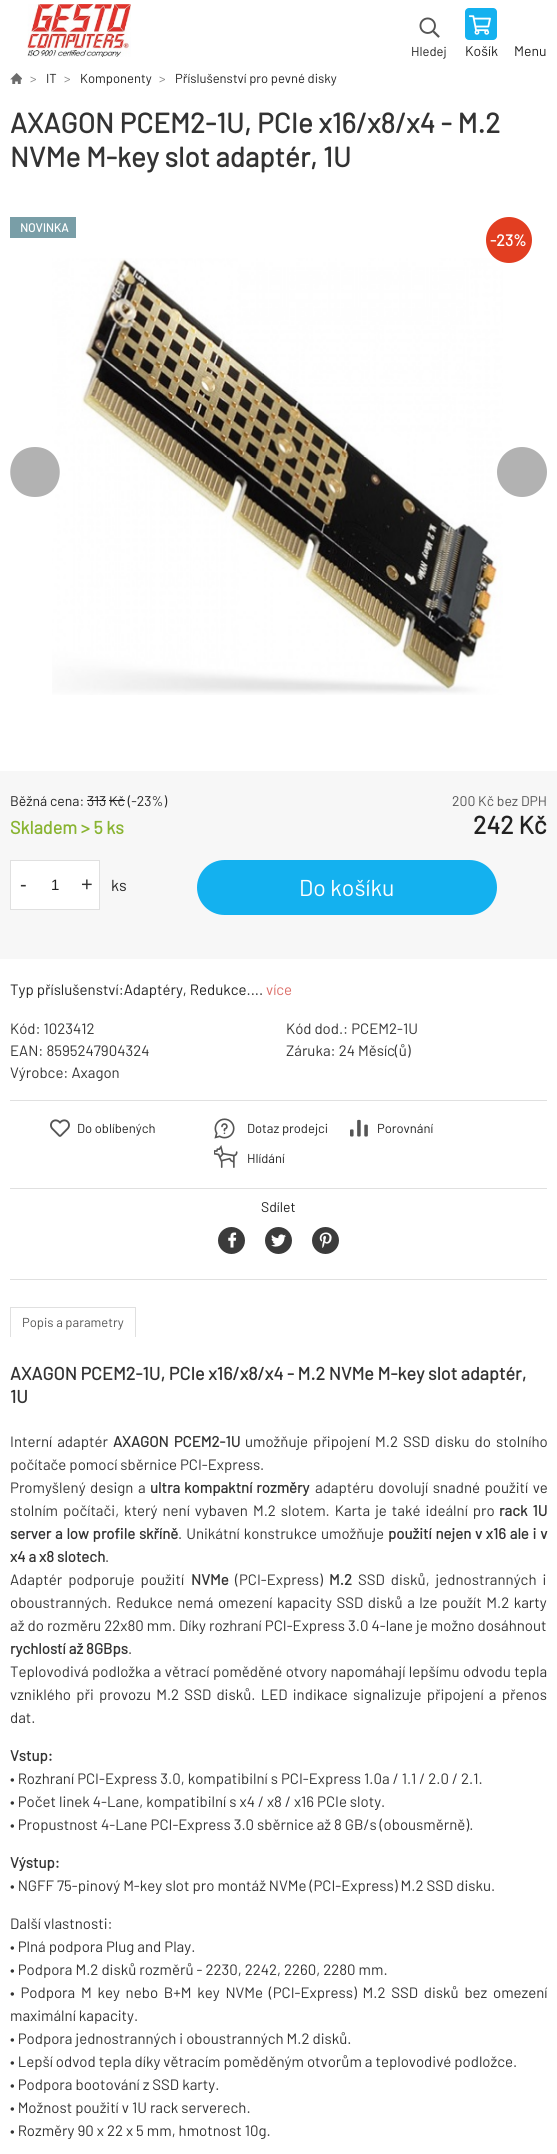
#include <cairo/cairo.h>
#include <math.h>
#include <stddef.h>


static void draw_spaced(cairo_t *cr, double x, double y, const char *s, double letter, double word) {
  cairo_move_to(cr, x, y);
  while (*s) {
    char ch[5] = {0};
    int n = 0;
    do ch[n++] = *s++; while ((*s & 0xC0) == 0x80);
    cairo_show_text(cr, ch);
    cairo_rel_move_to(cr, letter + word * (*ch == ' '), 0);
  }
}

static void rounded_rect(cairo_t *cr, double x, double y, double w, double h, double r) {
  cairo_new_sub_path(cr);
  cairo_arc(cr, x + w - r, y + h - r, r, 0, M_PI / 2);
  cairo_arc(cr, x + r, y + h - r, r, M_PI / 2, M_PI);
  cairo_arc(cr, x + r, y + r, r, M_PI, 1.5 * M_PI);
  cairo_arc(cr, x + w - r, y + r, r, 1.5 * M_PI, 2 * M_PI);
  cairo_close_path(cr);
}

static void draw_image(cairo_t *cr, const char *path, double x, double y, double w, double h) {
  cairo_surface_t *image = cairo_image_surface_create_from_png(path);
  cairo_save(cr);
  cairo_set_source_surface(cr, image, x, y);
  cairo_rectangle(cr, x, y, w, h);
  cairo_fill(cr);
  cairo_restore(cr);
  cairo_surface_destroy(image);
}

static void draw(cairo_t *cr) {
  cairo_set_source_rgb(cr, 1, 1, 1);
  cairo_paint(cr);
  draw_image(cr, "images/1.png", 27, 4, 104, 53);
  draw_image(cr, "images/2.png", 419, 17, 21, 21);
  cairo_set_source_rgb(cr, 20 / 255.0, 177 / 255.0, 239 / 255.0);
  rounded_rect(cr, 465, 8, 32, 32, 4);
  cairo_fill(cr);
  draw_image(cr, "images/3.png", 469, 15, 22, 20);
  draw_image(cr, "images/4.png", 10, 73, 12, 11);
  cairo_set_source_rgb(cr, 121 / 255.0, 158 / 255.0, 167 / 255.0);
  cairo_rectangle(cr, 10, 217, 66, 21);
  cairo_fill(cr);
  draw_image(cr, "images/5.png", 52, 258, 451, 437);
  cairo_set_source_rgb(cr, 226 / 255.0, 62 / 255.0, 33 / 255.0);
  cairo_arc(cr, 509, 240, 23, 0, 2 * M_PI);
  cairo_fill(cr);
  cairo_set_source_rgb(cr, 178 / 255.0, 178 / 255.0, 178 / 255.0);
  cairo_new_path(cr);
  cairo_move_to(cr, 35, 497);
  cairo_curve_to(cr, 2, 497, 2, 447, 35, 447);
  cairo_curve_to(cr, 68, 447, 68, 497, 35, 497);
  cairo_close_path(cr);
  cairo_fill(cr);
  cairo_arc(cr, 522, 472, 25, 0, 2 * M_PI);
  cairo_fill(cr);
  cairo_set_source_rgb(cr, 247 / 255.0, 247 / 255.0, 247 / 255.0);
  cairo_rectangle(cr, 0, 771, 557, 188);
  cairo_fill(cr);
  cairo_set_source_rgb(cr, 34 / 255.0, 34 / 255.0, 34 / 255.0);
  cairo_rectangle(cr, 87, 800, 19, 1);
  cairo_fill(cr);
  cairo_rectangle(cr, 109, 800, 16, 1);
  cairo_fill(cr);
  cairo_set_source_rgb(cr, 1, 1, 1);
  cairo_rectangle(cr, 10.5, 860.5, 89, 49);
  cairo_fill_preserve(cr);
  cairo_set_source_rgb(cr, 224 / 255.0, 224 / 255.0, 224 / 255.0);
  cairo_set_line_width(cr, 1);
  cairo_stroke(cr);
  cairo_set_source_rgb(cr, 20 / 255.0, 177 / 255.0, 239 / 255.0);
  rounded_rect(cr, 197, 860, 300, 55, 27.5);
  cairo_fill(cr);
  cairo_set_source_rgb(cr, 224 / 255.0, 224 / 255.0, 224 / 255.0);
  cairo_rectangle(cr, 10, 1100, 537, 1);
  cairo_fill(cr);
  cairo_rectangle(cr, 10, 1188, 537, 1);
  cairo_fill(cr);
  draw_image(cr, "images/6.png", 50, 1119, 20, 18);
  draw_image(cr, "images/7.png", 214, 1118, 21, 21);
  draw_image(cr, "images/8.png", 350, 1119, 18, 18);
  draw_image(cr, "images/9.png", 214, 1145, 24, 23);
  cairo_rectangle(cr, 10, 1279, 537, 1);
  cairo_fill(cr);
  cairo_set_source_rgb(cr, 59 / 255.0, 59 / 255.0, 59 / 255.0);
  cairo_arc(cr, 231.5, 1240.5, 13.5, 0, 2 * M_PI);
  cairo_fill(cr);
  draw_image(cr, "images/10.png", 228, 1232, 9, 16);
  cairo_arc(cr, 278.5, 1240.5, 13.5, 0, 2 * M_PI);
  cairo_fill(cr);
  draw_image(cr, "images/11.png", 271, 1234, 15, 13);
  cairo_arc(cr, 325.5, 1240.5, 13.5, 0, 2 * M_PI);
  cairo_fill(cr);
  draw_image(cr, "images/12.png", 319, 1232, 13, 16);
  cairo_set_source_rgb(cr, 224 / 255.0, 224 / 255.0, 224 / 255.0);
  cairo_rectangle(cr, 10, 1307, 126, 1);
  cairo_fill(cr);
  cairo_rectangle(cr, 135, 1307, 1, 30);
  cairo_fill(cr);
  cairo_rectangle(cr, 10, 1307, 1, 30);
  cairo_fill(cr);
  cairo_select_font_face(cr, "Barlow", CAIRO_FONT_SLANT_NORMAL, CAIRO_FONT_WEIGHT_NORMAL);
  cairo_set_font_size(cr, 13);
  cairo_set_source_rgb(cr, 34 / 255.0, 34 / 255.0, 34 / 255.0);
  cairo_move_to(cr, 411, 56);
  cairo_show_text(cr, "Hledej");
  cairo_set_font_size(cr, 14);
  cairo_move_to(cr, 465, 56);
  cairo_show_text(cr, "Košík");
  cairo_move_to(cr, 514, 56);
  cairo_show_text(cr, "Menu");
  cairo_set_font_size(cr, 13);
  cairo_set_source_rgb(cr, 136 / 255.0, 136 / 255.0, 136 / 255.0);
  cairo_move_to(cr, 30, 83);
  cairo_show_text(cr, ">");
  cairo_set_source_rgb(cr, 34 / 255.0, 34 / 255.0, 34 / 255.0);
  cairo_move_to(cr, 46, 83);
  cairo_show_text(cr, "IT");
  cairo_set_source_rgb(cr, 136 / 255.0, 136 / 255.0, 136 / 255.0);
  cairo_move_to(cr, 64, 83);
  cairo_show_text(cr, ">");
  cairo_set_source_rgb(cr, 34 / 255.0, 34 / 255.0, 34 / 255.0);
  cairo_move_to(cr, 80, 83);
  cairo_show_text(cr, "Komponenty");
  cairo_set_source_rgb(cr, 136 / 255.0, 136 / 255.0, 136 / 255.0);
  cairo_move_to(cr, 159, 83);
  cairo_show_text(cr, ">");
  cairo_set_source_rgb(cr, 34 / 255.0, 34 / 255.0, 34 / 255.0);
  cairo_move_to(cr, 175, 83);
  cairo_show_text(cr, "Příslušenství pro pevné disky");
  cairo_select_font_face(cr, "Barlow", CAIRO_FONT_SLANT_NORMAL, CAIRO_FONT_WEIGHT_BOLD);
  cairo_set_font_size(cr, 28);
  cairo_set_source_rgb(cr, 51 / 255.0, 51 / 255.0, 51 / 255.0);
  cairo_move_to(cr, 10, 133);
  cairo_show_text(cr, "AXAGON PCEM2-1U, PCIe x16/x8/x4 - M.2");
  cairo_move_to(cr, 10, 167);
  cairo_show_text(cr, "NVMe M-key slot adaptér, 1U");
  cairo_set_font_size(cr, 12);
  cairo_set_source_rgb(cr, 1, 1, 1);
  cairo_move_to(cr, 20, 232);
  cairo_show_text(cr, "NOVINKA");
  cairo_set_font_size(cr, 16);
  cairo_move_to(cr, 490, 246);
  cairo_show_text(cr, "-23%");
  cairo_select_font_face(cr, "Barlow", CAIRO_FONT_SLANT_NORMAL, CAIRO_FONT_WEIGHT_NORMAL);
  cairo_set_font_size(cr, 14);
  cairo_set_source_rgb(cr, 34 / 255.0, 34 / 255.0, 34 / 255.0);
  cairo_move_to(cr, 10, 806);
  cairo_show_text(cr, "Běžná cena: 313 Kč (-23%)");
  cairo_set_source_rgb(cr, 85 / 255.0, 85 / 255.0, 85 / 255.0);
  cairo_move_to(cr, 452, 806);
  cairo_show_text(cr, "200 Kč bez DPH");
  cairo_select_font_face(cr, "Barlow", CAIRO_FONT_SLANT_NORMAL, CAIRO_FONT_WEIGHT_BOLD);
  cairo_set_font_size(cr, 18);
  cairo_set_source_rgb(cr, 137 / 255.0, 180 / 255.0, 50 / 255.0);
  cairo_move_to(cr, 10, 834);
  cairo_show_text(cr, "Skladem > 5 ks");
  cairo_set_font_size(cr, 25);
  cairo_set_source_rgb(cr, 34 / 255.0, 34 / 255.0, 34 / 255.0);
  cairo_move_to(cr, 473, 834);
  cairo_show_text(cr, "242 Kč");
  cairo_select_font_face(cr, "Liberation Sans", CAIRO_FONT_SLANT_NORMAL, CAIRO_FONT_WEIGHT_NORMAL);
  cairo_set_font_size(cr, 20);
  cairo_set_source_rgb(cr, 51 / 255.0, 51 / 255.0, 51 / 255.0);
  cairo_move_to(cr, 20, 891);
  cairo_show_text(cr, "-");
  cairo_set_font_size(cr, 15);
  cairo_set_source_rgb(cr, 34 / 255.0, 34 / 255.0, 34 / 255.0);
  cairo_move_to(cr, 51, 890);
  cairo_show_text(cr, "1");
  cairo_set_font_size(cr, 20);
  cairo_set_source_rgb(cr, 51 / 255.0, 51 / 255.0, 51 / 255.0);
  cairo_move_to(cr, 81, 891);
  cairo_show_text(cr, "+");
  cairo_select_font_face(cr, "Barlow", CAIRO_FONT_SLANT_NORMAL, CAIRO_FONT_WEIGHT_NORMAL);
  cairo_set_font_size(cr, 16);
  cairo_set_source_rgb(cr, 34 / 255.0, 34 / 255.0, 34 / 255.0);
  cairo_move_to(cr, 111, 891);
  cairo_show_text(cr, "ks");
  cairo_set_font_size(cr, 23);
  cairo_set_source_rgb(cr, 1, 1, 1);
  cairo_move_to(cr, 299, 896);
  cairo_show_text(cr, "Do košíku");
  cairo_set_font_size(cr, 15);
  cairo_set_source_rgb(cr, 34 / 255.0, 34 / 255.0, 34 / 255.0);
  cairo_move_to(cr, 10, 995);
  cairo_show_text(cr, "Typ příslušenství:Adaptéry, Redukce....");
  cairo_set_source_rgb(cr, 220 / 255.0, 111 / 255.0, 105 / 255.0);
  cairo_move_to(cr, 266, 995);
  cairo_show_text(cr, "více");
  cairo_set_source_rgb(cr, 51 / 255.0, 51 / 255.0, 51 / 255.0);
  cairo_move_to(cr, 10, 1034);
  cairo_show_text(cr, "Kód: 1023412");
  cairo_move_to(cr, 286, 1034);
  cairo_show_text(cr, "Kód dod.: PCEM2-1U");
  cairo_move_to(cr, 10, 1056);
  cairo_show_text(cr, "EAN: 8595247904324");
  cairo_move_to(cr, 286, 1056);
  cairo_show_text(cr, "Záruka: 24 Měsíc(ů)");
  cairo_move_to(cr, 10, 1078);
  cairo_show_text(cr, "Výrobce: Axagon");
  cairo_set_font_size(cr, 13);
  cairo_set_source_rgb(cr, 34 / 255.0, 34 / 255.0, 34 / 255.0);
  cairo_move_to(cr, 77, 1133);
  cairo_show_text(cr, "Do oblíbených");
  cairo_move_to(cr, 247, 1133);
  cairo_show_text(cr, "Dotaz prodejci");
  cairo_move_to(cr, 377, 1133);
  cairo_show_text(cr, "Porovnání");
  cairo_move_to(cr, 247, 1163);
  cairo_show_text(cr, "Hlídání");
  cairo_set_font_size(cr, 14);
  cairo_move_to(cr, 261, 1212);
  cairo_show_text(cr, "Sdílet");
  cairo_set_font_size(cr, 13);
  cairo_set_source_rgb(cr, 85 / 255.0, 85 / 255.0, 85 / 255.0);
  cairo_move_to(cr, 22, 1327);
  cairo_show_text(cr, "Popis a parametry");
  cairo_select_font_face(cr, "Barlow", CAIRO_FONT_SLANT_NORMAL, CAIRO_FONT_WEIGHT_BOLD);
  cairo_set_font_size(cr, 18);
  cairo_set_source_rgb(cr, 51 / 255.0, 51 / 255.0, 51 / 255.0);
  cairo_move_to(cr, 10, 1380);
  cairo_show_text(cr, "AXAGON PCEM2-1U, PCIe x16/x8/x4 - M.2 NVMe M-key slot adaptér,");
  cairo_move_to(cr, 10, 1403);
  cairo_show_text(cr, "1U");
  cairo_select_font_face(cr, "Barlow", CAIRO_FONT_SLANT_NORMAL, CAIRO_FONT_WEIGHT_NORMAL);
  cairo_set_font_size(cr, 15);
  draw_spaced(cr, 10, 1447, "Interní adaptér", 0, 2);
  cairo_select_font_face(cr, "Barlow", CAIRO_FONT_SLANT_NORMAL, CAIRO_FONT_WEIGHT_BOLD);
  draw_spaced(cr, 113, 1447, "AXAGON PCEM2-1U", 0, 2);
  cairo_select_font_face(cr, "Barlow", CAIRO_FONT_SLANT_NORMAL, CAIRO_FONT_WEIGHT_NORMAL);
  draw_spaced(cr, 245, 1447, "umožňuje připojení M.2 SSD disku do stolního", 0, 2);
  cairo_move_to(cr, 10, 1470);
  cairo_show_text(cr, "počítače pomocí sběrnice PCI-Express.");
  draw_spaced(cr, 10, 1493, "Promyšlený design a", 0, 1.5);
  cairo_select_font_face(cr, "Barlow", CAIRO_FONT_SLANT_NORMAL, CAIRO_FONT_WEIGHT_BOLD);
  draw_spaced(cr, 150, 1493, "ultra kompaktní rozměry", 0, 1);
  cairo_select_font_face(cr, "Barlow", CAIRO_FONT_SLANT_NORMAL, CAIRO_FONT_WEIGHT_NORMAL);
  draw_spaced(cr, 315, 1493, "adaptéru dovolují snadné použití ve", 0, 1.5);
  draw_spaced(cr, 10, 1516, "stolním počítači, který není vybaven M.2 slotem. Karta je také ideální pro", 0, 2);
  cairo_select_font_face(cr, "Barlow", CAIRO_FONT_SLANT_NORMAL, CAIRO_FONT_WEIGHT_BOLD);
  draw_spaced(cr, 499, 1516, "rack 1U", 0, 2);
  draw_spaced(cr, 10, 1539, "server a low profile skříně", 0, 0.75);
  cairo_select_font_face(cr, "Barlow", CAIRO_FONT_SLANT_NORMAL, CAIRO_FONT_WEIGHT_NORMAL);
  draw_spaced(cr, 178, 1539, ". Unikátní konstrukce umožňuje", 0, 1);
  cairo_select_font_face(cr, "Barlow", CAIRO_FONT_SLANT_NORMAL, CAIRO_FONT_WEIGHT_BOLD);
  draw_spaced(cr, 388, 1539, "použití nejen v x16 ale i v", 0, 0.75);
  cairo_move_to(cr, 10, 1562);
  cairo_show_text(cr, "x4 a x8 slotech");
  cairo_select_font_face(cr, "Barlow", CAIRO_FONT_SLANT_NORMAL, CAIRO_FONT_WEIGHT_NORMAL);
  cairo_move_to(cr, 105, 1562);
  cairo_show_text(cr, ".");
  draw_spaced(cr, 10, 1585, "Adaptér podporuje použití", 0, 3);
  cairo_select_font_face(cr, "Barlow", CAIRO_FONT_SLANT_NORMAL, CAIRO_FONT_WEIGHT_BOLD);
  cairo_move_to(cr, 191, 1585);
  cairo_show_text(cr, "NVMe");
  cairo_select_font_face(cr, "Barlow", CAIRO_FONT_SLANT_NORMAL, CAIRO_FONT_WEIGHT_NORMAL);
  cairo_move_to(cr, 235, 1585);
  cairo_show_text(cr, "(PCI-Express)");
  cairo_select_font_face(cr, "Barlow", CAIRO_FONT_SLANT_NORMAL, CAIRO_FONT_WEIGHT_BOLD);
  cairo_move_to(cr, 329, 1585);
  cairo_show_text(cr, "M.2");
  cairo_select_font_face(cr, "Barlow", CAIRO_FONT_SLANT_NORMAL, CAIRO_FONT_WEIGHT_NORMAL);
  draw_spaced(cr, 358, 1585, "SSD disků, jednostranných i", 0, 3);
  draw_spaced(cr, 10, 1608, "oboustranných. Redukce nemá omezení kapacity SSD disků a lze použít M.2 karty", 0, 1.5);
  draw_spaced(cr, 10, 1631, "až do rozměru 22x80 mm. Díky rozhraní PCI-Express 3.0 4-lane je možno dosáhnout", 0, 0.1);
  cairo_select_font_face(cr, "Barlow", CAIRO_FONT_SLANT_NORMAL, CAIRO_FONT_WEIGHT_BOLD);
  cairo_move_to(cr, 10, 1654);
  cairo_show_text(cr, "rychlostí až 8GBps");
  cairo_select_font_face(cr, "Barlow", CAIRO_FONT_SLANT_NORMAL, CAIRO_FONT_WEIGHT_NORMAL);
  cairo_move_to(cr, 128, 1654);
  cairo_show_text(cr, ".");
  draw_spaced(cr, 10, 1677, "Teplovodivá podložka a větrací poměděné otvory napomáhají lepšímu odvodu tepla", 0, 0.5);
  draw_spaced(cr, 10, 1700, "vzniklého při provozu M.2 SSD disků. LED indikace signalizuje připojení a přenos", 0, 2.25);
  cairo_move_to(cr, 10, 1723);
  cairo_show_text(cr, "dat.");
  cairo_select_font_face(cr, "Barlow", CAIRO_FONT_SLANT_NORMAL, CAIRO_FONT_WEIGHT_BOLD);
  cairo_move_to(cr, 10, 1761);
  cairo_show_text(cr, "Vstup:");
  cairo_select_font_face(cr, "Barlow", CAIRO_FONT_SLANT_NORMAL, CAIRO_FONT_WEIGHT_NORMAL);
  cairo_move_to(cr, 10, 1784);
  cairo_show_text(cr, "• Rozhraní PCI-Express 3.0, kompatibilní s PCI-Express 1.0a / 1.1 / 2.0 / 2.1.");
  cairo_move_to(cr, 10, 1807);
  cairo_show_text(cr, "• Počet linek 4-Lane, kompatibilní s x4 / x8 / x16 PCIe sloty.");
  cairo_move_to(cr, 10, 1830);
  cairo_show_text(cr, "• Propustnost 4-Lane PCI-Express 3.0 sběrnice až 8 GB/s (obousměrně).");
  cairo_select_font_face(cr, "Barlow", CAIRO_FONT_SLANT_NORMAL, CAIRO_FONT_WEIGHT_BOLD);
  cairo_move_to(cr, 10, 1868);
  cairo_show_text(cr, "Výstup:");
  cairo_select_font_face(cr, "Barlow", CAIRO_FONT_SLANT_NORMAL, CAIRO_FONT_WEIGHT_NORMAL);
  cairo_move_to(cr, 10, 1891);
  cairo_show_text(cr, "• NGFF 75-pinový M-key slot pro montáž NVMe (PCI-Express) M.2 SSD disku.");
  cairo_move_to(cr, 10, 1929);
  cairo_show_text(cr, "Další vlastnosti:");
  cairo_move_to(cr, 10, 1952);
  cairo_show_text(cr, "• Plná podpora Plug and Play.");
  cairo_move_to(cr, 10, 1975);
  cairo_show_text(cr, "• Podpora M.2 disků rozměrů - 2230, 2242, 2260, 2280 mm.");
  draw_spaced(cr, 10, 1998, "• Podpora M key nebo B+M key NVMe (PCI-Express) M.2 SSD disků bez omezení", 0, 2.75);
  cairo_move_to(cr, 10, 2021);
  cairo_show_text(cr, "maximální kapacity.");
  cairo_move_to(cr, 10, 2044);
  cairo_show_text(cr, "• Podpora jednostranných i oboustranných M.2 disků.");
  cairo_move_to(cr, 10, 2067);
  cairo_show_text(cr, "• Lepší odvod tepla díky větracím poměděným otvorům a teplovodivé podložce.");
  cairo_move_to(cr, 10, 2090);
  cairo_show_text(cr, "• Podpora bootování z SSD karty.");
  cairo_move_to(cr, 10, 2113);
  cairo_show_text(cr, "• Možnost použití v 1U rack serverech.");
  cairo_move_to(cr, 10, 2136);
  cairo_show_text(cr, "• Rozměry 90 x 22 x 5 mm, hmotnost 10g.");
}

int main(void) {
  cairo_surface_t *surface = cairo_image_surface_create(CAIRO_FORMAT_RGB24, 557, 2154);
  cairo_t *cr = cairo_create(surface);
  cairo_font_options_t *options = cairo_font_options_create();
  cairo_font_options_set_hint_metrics(options, CAIRO_HINT_METRICS_OFF);
  cairo_font_options_set_hint_style(options, CAIRO_HINT_STYLE_NONE);
  cairo_set_font_options(cr, options);
  cairo_set_miter_limit(cr, 4);
  draw(cr);
  cairo_surface_write_to_png(surface, "out.png");
  cairo_font_options_destroy(options);
  cairo_destroy(cr);
  cairo_surface_destroy(surface);
  return 0;
}
